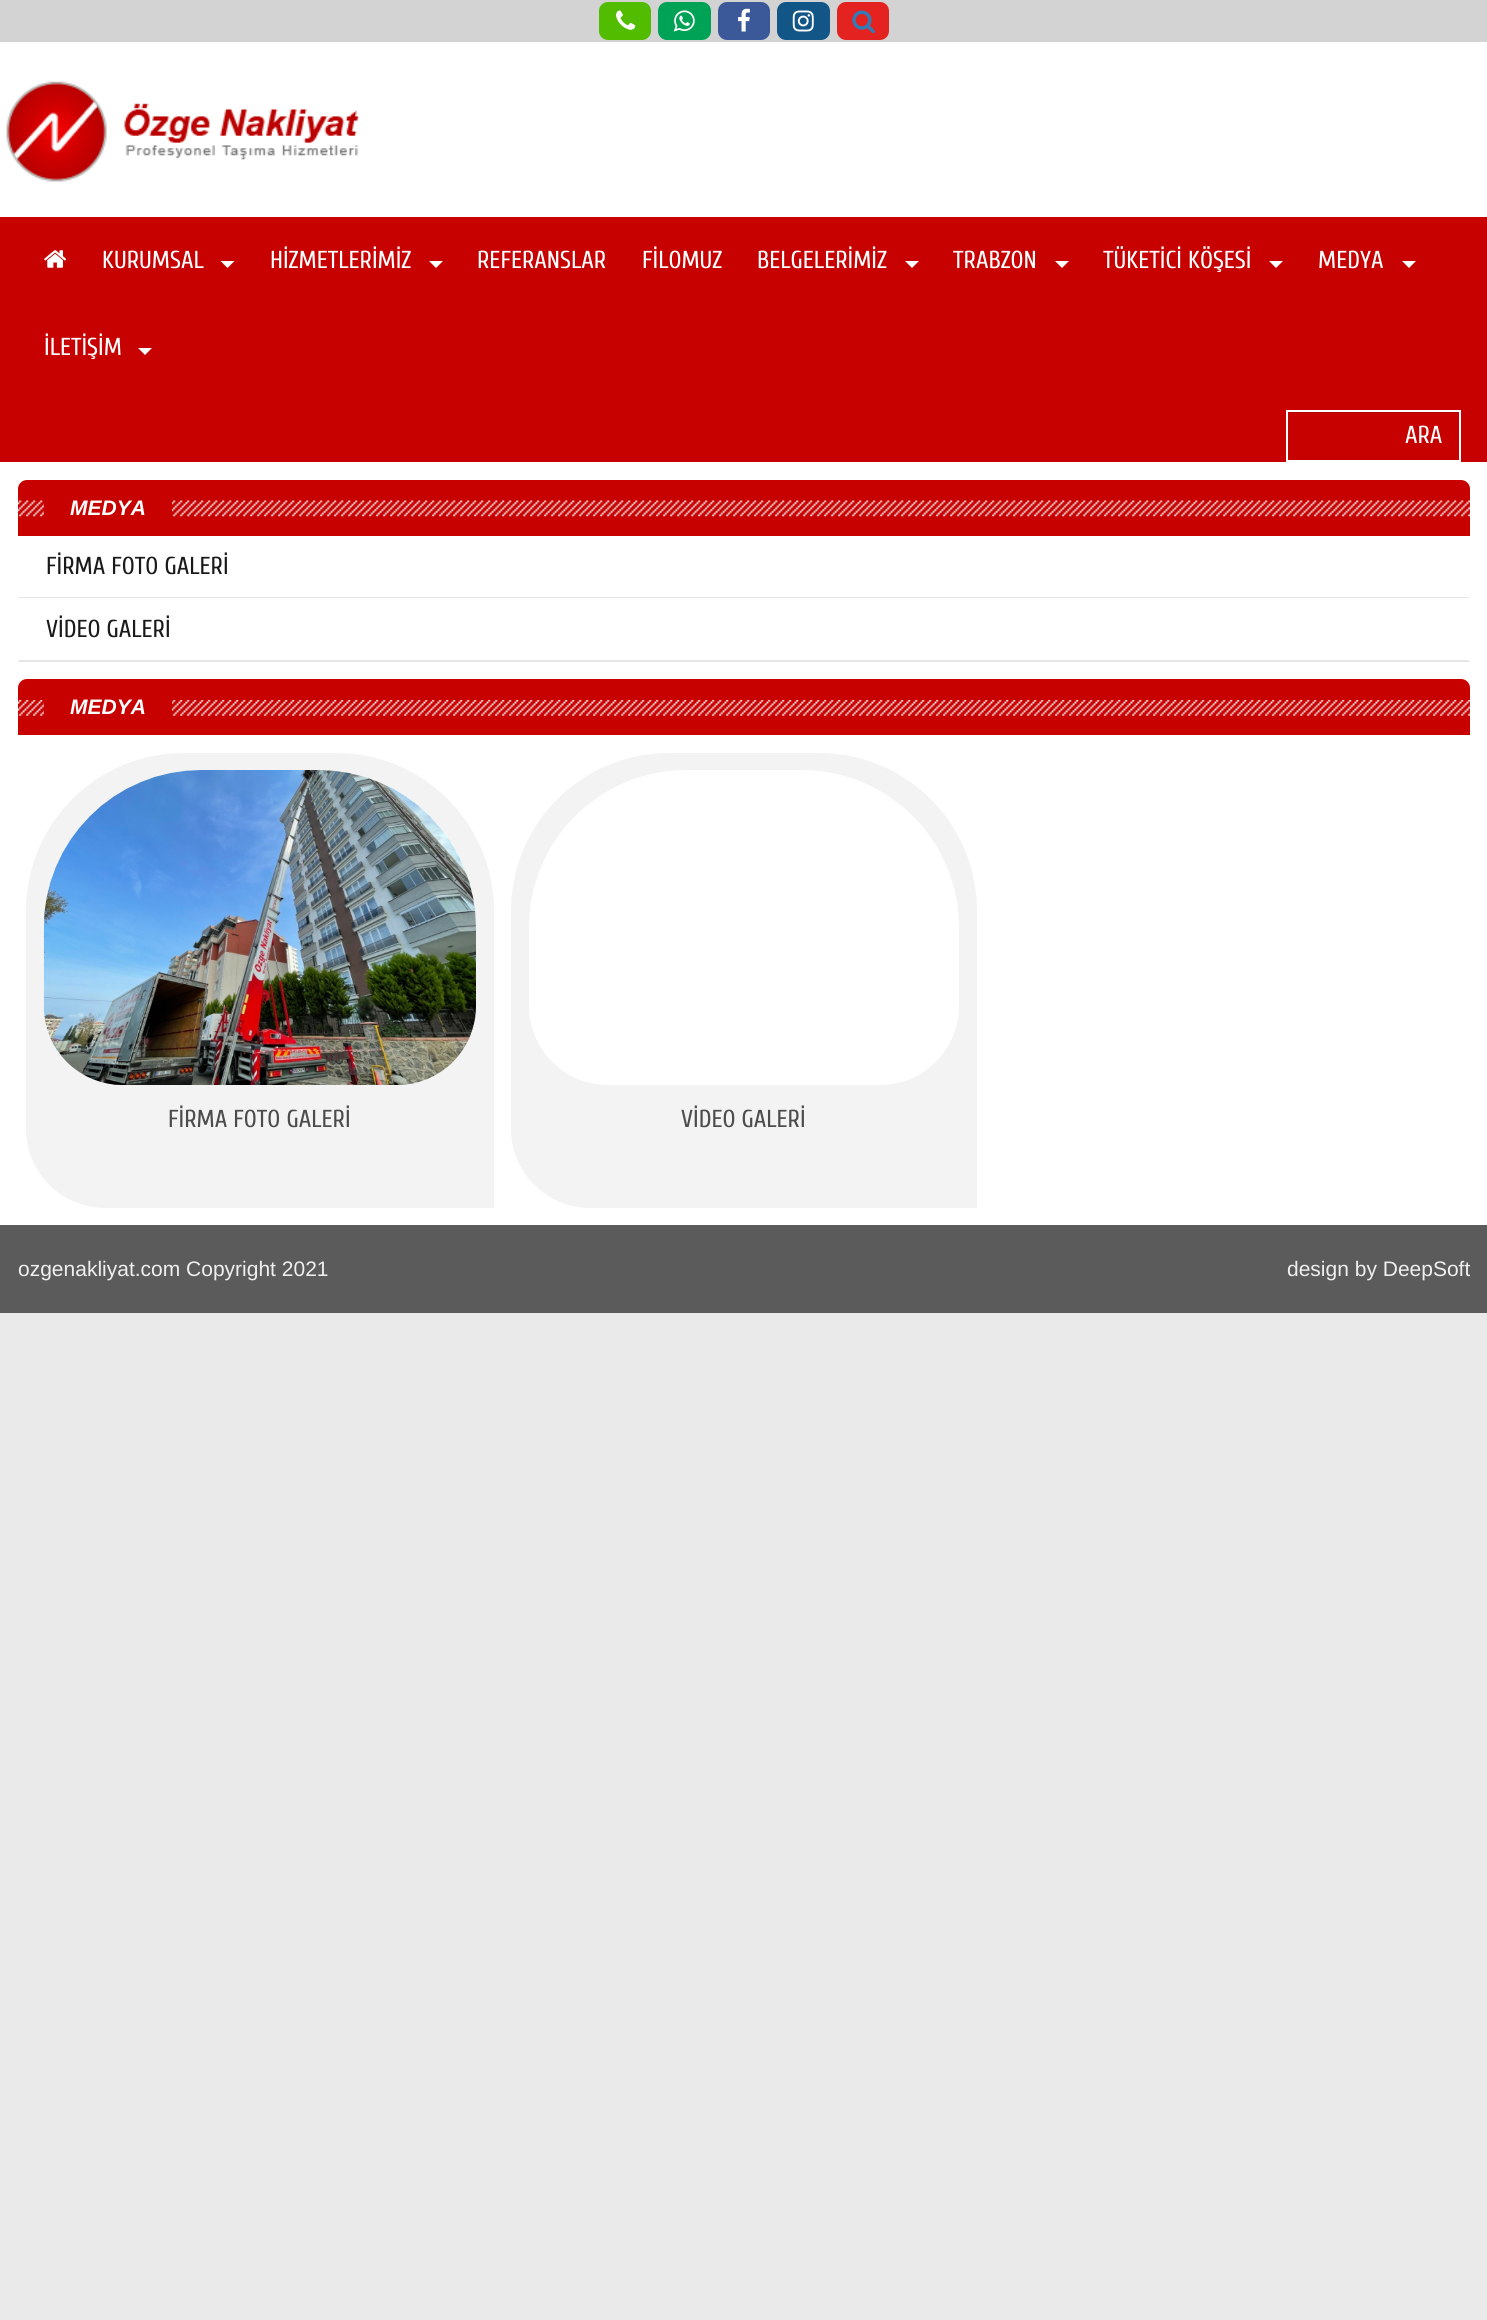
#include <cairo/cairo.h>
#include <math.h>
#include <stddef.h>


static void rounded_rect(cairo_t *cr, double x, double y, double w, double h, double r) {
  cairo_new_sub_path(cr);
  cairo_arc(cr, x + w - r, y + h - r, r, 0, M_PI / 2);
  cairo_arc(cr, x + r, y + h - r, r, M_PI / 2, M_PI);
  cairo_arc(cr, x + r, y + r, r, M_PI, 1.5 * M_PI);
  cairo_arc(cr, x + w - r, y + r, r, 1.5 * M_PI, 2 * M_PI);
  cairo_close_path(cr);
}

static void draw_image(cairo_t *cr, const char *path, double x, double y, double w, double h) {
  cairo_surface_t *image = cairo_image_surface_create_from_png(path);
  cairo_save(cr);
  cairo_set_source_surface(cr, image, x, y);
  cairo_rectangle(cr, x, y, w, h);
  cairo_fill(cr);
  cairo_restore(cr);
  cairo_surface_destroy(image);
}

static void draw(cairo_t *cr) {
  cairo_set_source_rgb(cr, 234 / 255.0, 234 / 255.0, 234 / 255.0);
  cairo_paint(cr);
  cairo_set_source_rgb(cr, 211 / 255.0, 211 / 255.0, 211 / 255.0);
  cairo_rectangle(cr, 0, 0, 1487, 42);
  cairo_fill(cr);
  cairo_set_source_rgb(cr, 82 / 255.0, 189 / 255.0, 0);
  rounded_rect(cr, 599, 2, 52, 38, 9);
  cairo_fill(cr);
  draw_image(cr, "images/1.png", 616, 10, 20, 20);
  cairo_set_source_rgb(cr, 0, 162 / 255.0, 85 / 255.0);
  rounded_rect(cr, 658, 2, 53, 38, 9);
  cairo_fill(cr);
  draw_image(cr, "images/2.png", 673, 10, 22, 22);
  cairo_set_source_rgb(cr, 59 / 255.0, 89 / 255.0, 152 / 255.0);
  rounded_rect(cr, 718, 2, 52, 38, 9);
  cairo_fill(cr);
  draw_image(cr, "images/3.png", 738, 8, 12, 24);
  cairo_set_source_rgb(cr, 18 / 255.0, 86 / 255.0, 136 / 255.0);
  rounded_rect(cr, 777, 2, 53, 38, 9);
  cairo_fill(cr);
  draw_image(cr, "images/4.png", 792, 10, 22, 22);
  cairo_set_source_rgb(cr, 228 / 255.0, 35 / 255.0, 32 / 255.0);
  rounded_rect(cr, 837, 2, 52, 38, 9);
  cairo_fill(cr);
  draw_image(cr, "images/5.png", 852, 10, 23, 24);
  cairo_set_source_rgb(cr, 1, 1, 1);
  cairo_rectangle(cr, 0, 42, 1487, 175);
  cairo_fill(cr);
  draw_image(cr, "images/6.png", 6, 81, 354, 101);
  cairo_set_source_rgb(cr, 199 / 255.0, 0, 0);
  cairo_rectangle(cr, 0, 217, 1487, 245);
  cairo_fill(cr);
  draw_image(cr, "images/7.png", 44, 250, 23, 18);
  cairo_set_source_rgb(cr, 1, 1, 1);
  cairo_new_path(cr);
  cairo_move_to(cr, 220.5, 261);
  cairo_line_to(cr, 234.5, 261);
  cairo_line_to(cr, 227.5, 268);
  cairo_close_path(cr);
  cairo_fill(cr);
  cairo_new_path(cr);
  cairo_move_to(cr, 429, 261);
  cairo_line_to(cr, 443, 261);
  cairo_line_to(cr, 436, 268);
  cairo_close_path(cr);
  cairo_fill(cr);
  cairo_new_path(cr);
  cairo_move_to(cr, 905, 261);
  cairo_line_to(cr, 919, 261);
  cairo_line_to(cr, 912, 268);
  cairo_close_path(cr);
  cairo_fill(cr);
  cairo_new_path(cr);
  cairo_move_to(cr, 1055, 261);
  cairo_line_to(cr, 1069, 261);
  cairo_line_to(cr, 1062, 268);
  cairo_close_path(cr);
  cairo_fill(cr);
  cairo_new_path(cr);
  cairo_move_to(cr, 1269, 261);
  cairo_line_to(cr, 1283, 261);
  cairo_line_to(cr, 1276, 268);
  cairo_close_path(cr);
  cairo_fill(cr);
  cairo_new_path(cr);
  cairo_move_to(cr, 1402, 261);
  cairo_line_to(cr, 1416, 261);
  cairo_line_to(cr, 1409, 268);
  cairo_close_path(cr);
  cairo_fill(cr);
  cairo_new_path(cr);
  cairo_move_to(cr, 138, 348);
  cairo_line_to(cr, 152, 348);
  cairo_line_to(cr, 145, 355);
  cairo_close_path(cr);
  cairo_fill(cr);
  cairo_set_source_rgb(cr, 184 / 255.0, 0, 0);
  cairo_rectangle(cr, 1288, 412, 172, 1);
  cairo_fill(cr);
  cairo_rectangle(cr, 1287, 411, 173, 50);
  cairo_set_source_rgb(cr, 1, 1, 1);
  cairo_stroke(cr);
  cairo_rectangle(cr, 0, 462, 1487, 763);
  cairo_fill(cr);
  cairo_set_source_rgb(cr, 199 / 255.0, 0, 0);
  cairo_new_path(cr);
  cairo_move_to(cr, 27, 480);
  cairo_line_to(cr, 1461, 480);
  cairo_curve_to(cr, 1466, 480, 1470, 484, 1470, 489);
  cairo_line_to(cr, 1470, 536);
  cairo_line_to(cr, 18, 536);
  cairo_line_to(cr, 18, 489);
  cairo_curve_to(cr, 18, 484, 22, 480, 27, 480);
  cairo_close_path(cr);
  cairo_fill(cr);
  draw_image(cr, "images/8.png", 18, 500, 1452, 17);
  cairo_rectangle(cr, 44, 500, 128, 17);
  cairo_fill(cr);
  cairo_set_source_rgb(cr, 230 / 255.0, 230 / 255.0, 230 / 255.0);
  cairo_new_path(cr);
  cairo_move_to(cr, 1470, 598);
  cairo_line_to(cr, 18, 598);
  cairo_line_to(cr, 19, 597);
  cairo_line_to(cr, 1468, 597);
  cairo_close_path(cr);
  cairo_fill(cr);
  cairo_new_path(cr);
  cairo_move_to(cr, 1470, 662);
  cairo_line_to(cr, 18, 662);
  cairo_line_to(cr, 19, 660);
  cairo_line_to(cr, 1468, 660);
  cairo_close_path(cr);
  cairo_fill(cr);
  cairo_set_source_rgb(cr, 199 / 255.0, 0, 0);
  cairo_new_path(cr);
  cairo_move_to(cr, 27, 679);
  cairo_line_to(cr, 1461, 679);
  cairo_curve_to(cr, 1466, 679, 1470, 683, 1470, 688);
  cairo_line_to(cr, 1470, 735);
  cairo_line_to(cr, 18, 735);
  cairo_line_to(cr, 18, 688);
  cairo_curve_to(cr, 18, 683, 22, 679, 27, 679);
  cairo_close_path(cr);
  cairo_fill(cr);
  draw_image(cr, "images/9.png", 18, 700, 1452, 16);
  cairo_rectangle(cr, 44, 700, 128, 16);
  cairo_fill(cr);
  cairo_set_source_rgb(cr, 243 / 255.0, 243 / 255.0, 243 / 255.0);
  cairo_new_path(cr);
  cairo_move_to(cr, 184, 753);
  cairo_line_to(cr, 336, 753);
  cairo_curve_to(cr, 423.5, 753, 494, 823.5, 494, 911);
  cairo_line_to(cr, 494, 1208);
  cairo_line_to(cr, 105, 1208);
  cairo_curve_to(cr, 61.5, 1208, 26, 1172.5, 26, 1129);
  cairo_line_to(cr, 26, 911);
  cairo_curve_to(cr, 26, 823.5, 96.5, 753, 184, 753);
  cairo_close_path(cr);
  cairo_fill(cr);
  cairo_set_source_rgb(cr, 1, 1, 1);
  cairo_new_path(cr);
  cairo_move_to(cr, 201.5, 770);
  cairo_line_to(cr, 318.5, 770);
  cairo_curve_to(cr, 405.5, 770, 476, 840.5, 476, 927.5);
  cairo_line_to(cr, 476, 1006);
  cairo_curve_to(cr, 476, 1049.5, 440.5, 1085, 397, 1085);
  cairo_line_to(cr, 123, 1085);
  cairo_curve_to(cr, 79.5, 1085, 44, 1049.5, 44, 1006);
  cairo_line_to(cr, 44, 927.5);
  cairo_curve_to(cr, 44, 840.5, 114.5, 770, 201.5, 770);
  cairo_close_path(cr);
  cairo_fill(cr);
  draw_image(cr, "images/10.png", 43, 770, 433, 315);
  cairo_set_source_rgb(cr, 243 / 255.0, 243 / 255.0, 243 / 255.0);
  cairo_new_path(cr);
  cairo_move_to(cr, 669, 753);
  cairo_line_to(cr, 819, 753);
  cairo_curve_to(cr, 906.5, 753, 977, 823.5, 977, 911);
  cairo_line_to(cr, 977, 1208);
  cairo_line_to(cr, 590, 1208);
  cairo_curve_to(cr, 546.5, 1208, 511, 1172.5, 511, 1129);
  cairo_line_to(cr, 511, 911);
  cairo_curve_to(cr, 511, 823.5, 581.5, 753, 669, 753);
  cairo_close_path(cr);
  cairo_fill(cr);
  cairo_set_source_rgb(cr, 1, 1, 1);
  cairo_new_path(cr);
  cairo_move_to(cr, 686.5, 770);
  cairo_line_to(cr, 801.5, 770);
  cairo_curve_to(cr, 888.5, 770, 959, 840.5, 959, 927.5);
  cairo_line_to(cr, 959, 1006);
  cairo_curve_to(cr, 959, 1049.5, 923.5, 1085, 880, 1085);
  cairo_line_to(cr, 608, 1085);
  cairo_curve_to(cr, 564.5, 1085, 529, 1049.5, 529, 1006);
  cairo_line_to(cr, 529, 927.5);
  cairo_curve_to(cr, 529, 840.5, 599.5, 770, 686.5, 770);
  cairo_close_path(cr);
  cairo_fill(cr);
  cairo_set_source_rgb(cr, 91 / 255.0, 91 / 255.0, 91 / 255.0);
  cairo_rectangle(cr, 0, 1225, 1487, 88);
  cairo_fill(cr);
  cairo_select_font_face(cr, "Cuprum", CAIRO_FONT_SLANT_NORMAL, CAIRO_FONT_WEIGHT_NORMAL);
  cairo_set_font_size(cr, 24.5);
  cairo_set_source_rgb(cr, 1, 1, 1);
  cairo_move_to(cr, 102, 268);
  cairo_show_text(cr, "KURUMSAL");
  cairo_move_to(cr, 270, 268);
  cairo_show_text(cr, "HİZMETLERİMİZ");
  cairo_move_to(cr, 477, 268);
  cairo_show_text(cr, "REFERANSLAR");
  cairo_move_to(cr, 642, 268);
  cairo_show_text(cr, "FİLOMUZ");
  cairo_move_to(cr, 757, 268);
  cairo_show_text(cr, "BELGELERİMİZ");
  cairo_move_to(cr, 953, 268);
  cairo_show_text(cr, "TRABZON");
  cairo_move_to(cr, 1103, 268);
  cairo_show_text(cr, "TÜKETİCİ KÖŞESİ");
  cairo_move_to(cr, 1318, 268);
  cairo_show_text(cr, "MEDYA");
  cairo_move_to(cr, 44, 355);
  cairo_show_text(cr, "İLETİŞİM");
  cairo_move_to(cr, 1405, 443);
  cairo_show_text(cr, "ARA");
  cairo_select_font_face(cr, "Liberation Sans", CAIRO_FONT_SLANT_ITALIC, CAIRO_FONT_WEIGHT_BOLD);
  cairo_set_font_size(cr, 21);
  cairo_move_to(cr, 70, 515);
  cairo_show_text(cr, "MEDYA");
  cairo_select_font_face(cr, "Cuprum", CAIRO_FONT_SLANT_NORMAL, CAIRO_FONT_WEIGHT_NORMAL);
  cairo_set_font_size(cr, 24.5);
  cairo_set_source_rgb(cr, 26 / 255.0, 26 / 255.0, 26 / 255.0);
  cairo_move_to(cr, 46, 574);
  cairo_show_text(cr, "FİRMA FOTO GALERİ");
  cairo_move_to(cr, 46, 637);
  cairo_show_text(cr, "VİDEO GALERİ");
  cairo_select_font_face(cr, "Liberation Sans", CAIRO_FONT_SLANT_ITALIC, CAIRO_FONT_WEIGHT_BOLD);
  cairo_set_font_size(cr, 21);
  cairo_set_source_rgb(cr, 1, 1, 1);
  cairo_move_to(cr, 70, 714);
  cairo_show_text(cr, "MEDYA");
  cairo_select_font_face(cr, "Cuprum", CAIRO_FONT_SLANT_NORMAL, CAIRO_FONT_WEIGHT_NORMAL);
  cairo_set_font_size(cr, 24.5);
  cairo_set_source_rgb(cr, 76 / 255.0, 76 / 255.0, 76 / 255.0);
  cairo_move_to(cr, 168, 1127);
  cairo_show_text(cr, "FİRMA FOTO GALERİ");
  cairo_move_to(cr, 681, 1127);
  cairo_show_text(cr, "VİDEO GALERİ");
  cairo_select_font_face(cr, "Liberation Sans", CAIRO_FONT_SLANT_NORMAL, CAIRO_FONT_WEIGHT_NORMAL);
  cairo_set_font_size(cr, 21);
  cairo_set_source_rgb(cr, 239 / 255.0, 239 / 255.0, 239 / 255.0);
  cairo_move_to(cr, 18, 1276);
  cairo_show_text(cr, "ozgenakliyat.com Copyright 2021");
  cairo_move_to(cr, 1287, 1276);
  cairo_show_text(cr, "design by DeepSoft");
}

int main(void) {
  cairo_surface_t *surface = cairo_image_surface_create(CAIRO_FORMAT_RGB24, 1487, 2320);
  cairo_t *cr = cairo_create(surface);
  cairo_font_options_t *options = cairo_font_options_create();
  cairo_font_options_set_hint_metrics(options, CAIRO_HINT_METRICS_OFF);
  cairo_font_options_set_hint_style(options, CAIRO_HINT_STYLE_NONE);
  cairo_set_font_options(cr, options);
  cairo_set_miter_limit(cr, 4);
  draw(cr);
  cairo_surface_write_to_png(surface, "out.png");
  cairo_font_options_destroy(options);
  cairo_destroy(cr);
  cairo_surface_destroy(surface);
  return 0;
}
